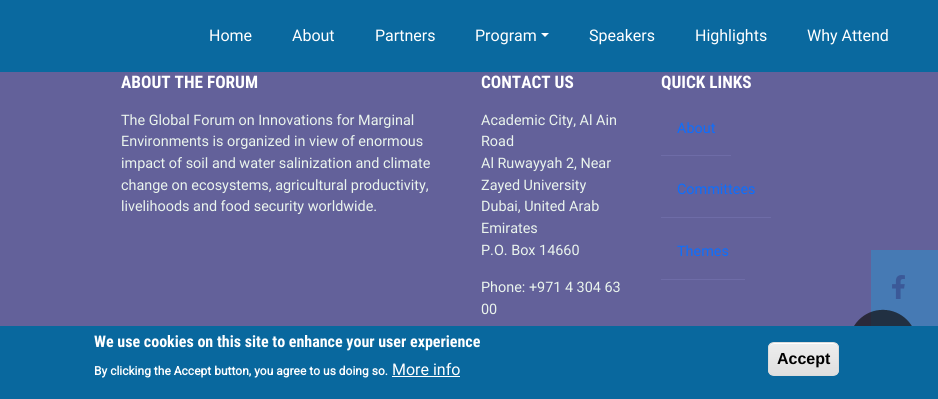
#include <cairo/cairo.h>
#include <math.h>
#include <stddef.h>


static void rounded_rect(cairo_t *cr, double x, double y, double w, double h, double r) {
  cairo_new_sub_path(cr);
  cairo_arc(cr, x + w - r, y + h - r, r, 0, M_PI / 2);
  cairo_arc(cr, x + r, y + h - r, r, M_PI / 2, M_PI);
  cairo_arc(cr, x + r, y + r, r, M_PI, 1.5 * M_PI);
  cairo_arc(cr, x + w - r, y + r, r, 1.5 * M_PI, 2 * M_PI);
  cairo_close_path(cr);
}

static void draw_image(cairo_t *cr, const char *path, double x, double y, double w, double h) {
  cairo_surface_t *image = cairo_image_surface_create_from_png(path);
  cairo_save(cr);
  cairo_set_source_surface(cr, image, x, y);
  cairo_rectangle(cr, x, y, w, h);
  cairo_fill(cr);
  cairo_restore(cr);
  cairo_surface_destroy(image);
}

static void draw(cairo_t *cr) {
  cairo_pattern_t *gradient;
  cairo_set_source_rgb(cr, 99 / 255.0, 97 / 255.0, 154 / 255.0);
  cairo_paint(cr);
  cairo_set_source_rgb(cr, 10 / 255.0, 105 / 255.0, 159 / 255.0);
  cairo_rectangle(cr, 0, 0, 938, 72);
  cairo_fill(cr);
  cairo_set_source_rgb(cr, 1, 1, 1);
  cairo_new_path(cr);
  cairo_move_to(cr, 541, 33);
  cairo_line_to(cr, 549, 33);
  cairo_line_to(cr, 545, 37);
  cairo_close_path(cr);
  cairo_fill(cr);
  cairo_set_source_rgb(cr, 110 / 255.0, 108 / 255.0, 167 / 255.0);
  cairo_rectangle(cr, 661, 155, 70, 1);
  cairo_fill(cr);
  cairo_rectangle(cr, 661, 217, 110, 1);
  cairo_fill(cr);
  cairo_rectangle(cr, 661, 279, 84, 1);
  cairo_fill(cr);
  cairo_set_source_rgb(cr, 70 / 255.0, 122 / 255.0, 180 / 255.0);
  cairo_rectangle(cr, 871, 250, 67, 76);
  cairo_fill(cr);
  draw_image(cr, "images/1.png", 892, 275, 13, 24);
  draw_image(cr, "images/2.png", 854, 309, 58, 17);
  cairo_set_source_rgb(cr, 9 / 255.0, 104 / 255.0, 158 / 255.0);
  cairo_rectangle(cr, 0, 326, 938, 73);
  cairo_fill(cr);
  cairo_set_source_rgb(cr, 1, 1, 1);
  cairo_rectangle(cr, 392, 376, 68, 1);
  cairo_fill(cr);
  cairo_save(cr);
  rounded_rect(cr, 768, 342, 71, 34, 6);
  cairo_clip(cr);
  gradient = cairo_pattern_create_linear(804, 343, 804, 375);
  cairo_pattern_add_color_stop_rgba(gradient, 0.05, 237 / 255.0, 237 / 255.0, 237 / 255.0, 1);
  cairo_pattern_add_color_stop_rgba(gradient, 1, 223 / 255.0, 223 / 255.0, 223 / 255.0, 1);
  cairo_set_source(cr, gradient);
  cairo_pattern_destroy(gradient);
  cairo_rectangle(cr, 768, 343, 71, 32);
  cairo_fill(cr);
  cairo_restore(cr);
  cairo_new_path(cr);
  cairo_move_to(cr, 774, 344);
  cairo_line_to(cr, 833, 344);
  cairo_curve_to(cr, 836, 344, 838, 346, 838, 349);
  cairo_curve_to(cr, 838, 341, 829, 343, 823, 343);
  cairo_line_to(cr, 784, 343);
  cairo_curve_to(cr, 778, 343, 769, 341, 769, 349);
  cairo_curve_to(cr, 769, 346, 771, 344, 774, 344);
  cairo_close_path(cr);
  cairo_fill(cr);
  rounded_rect(cr, 768.5, 342.5, 70, 33, 5.5);
  cairo_set_source_rgb(cr, 220 / 255.0, 220 / 255.0, 220 / 255.0);
  cairo_set_line_width(cr, 1);
  cairo_stroke(cr);
  cairo_select_font_face(cr, "Roboto", CAIRO_FONT_SLANT_NORMAL, CAIRO_FONT_WEIGHT_NORMAL);
  cairo_set_font_size(cr, 16);
  cairo_set_source_rgb(cr, 1, 1, 1);
  cairo_move_to(cr, 209, 41);
  cairo_show_text(cr, "Home");
  cairo_move_to(cr, 292, 41);
  cairo_show_text(cr, "About");
  cairo_move_to(cr, 375, 41);
  cairo_show_text(cr, "Partners");
  cairo_move_to(cr, 475, 41);
  cairo_show_text(cr, "Program");
  cairo_move_to(cr, 589, 41);
  cairo_show_text(cr, "Speakers");
  cairo_move_to(cr, 695, 41);
  cairo_show_text(cr, "Highlights");
  cairo_move_to(cr, 807, 41);
  cairo_show_text(cr, "Why Attend");
  cairo_select_font_face(cr, "Roboto Condensed", CAIRO_FONT_SLANT_NORMAL, CAIRO_FONT_WEIGHT_BOLD);
  cairo_set_font_size(cr, 17.25);
  cairo_move_to(cr, 121, 88);
  cairo_show_text(cr, "ABOUT THE FORUM");
  cairo_select_font_face(cr, "Roboto", CAIRO_FONT_SLANT_NORMAL, CAIRO_FONT_WEIGHT_NORMAL);
  cairo_set_font_size(cr, 14.4);
  cairo_set_source_rgb(cr, 234 / 255.0, 244 / 255.0, 237 / 255.0);
  cairo_move_to(cr, 121, 125);
  cairo_show_text(cr, "The Global Forum on Innovations for Marginal");
  cairo_move_to(cr, 121, 146);
  cairo_show_text(cr, "Environments is organized in view of enormous");
  cairo_move_to(cr, 121, 168);
  cairo_show_text(cr, "impact of soil and water salinization and climate");
  cairo_move_to(cr, 121, 190);
  cairo_show_text(cr, "change on ecosystems, agricultural productivity,");
  cairo_move_to(cr, 121, 211);
  cairo_show_text(cr, "livelihoods and food security worldwide.");
  cairo_select_font_face(cr, "Roboto Condensed", CAIRO_FONT_SLANT_NORMAL, CAIRO_FONT_WEIGHT_BOLD);
  cairo_set_font_size(cr, 17.25);
  cairo_set_source_rgb(cr, 1, 1, 1);
  cairo_move_to(cr, 481, 88);
  cairo_show_text(cr, "CONTACT US");
  cairo_select_font_face(cr, "Roboto", CAIRO_FONT_SLANT_NORMAL, CAIRO_FONT_WEIGHT_NORMAL);
  cairo_set_font_size(cr, 14.4);
  cairo_set_source_rgb(cr, 234 / 255.0, 244 / 255.0, 237 / 255.0);
  cairo_move_to(cr, 481, 125);
  cairo_show_text(cr, "Academic City, Al Ain");
  cairo_move_to(cr, 481, 146);
  cairo_show_text(cr, "Road");
  cairo_move_to(cr, 481, 168);
  cairo_show_text(cr, "Al Ruwayyah 2, Near");
  cairo_move_to(cr, 481, 190);
  cairo_show_text(cr, "Zayed University");
  cairo_move_to(cr, 481, 211);
  cairo_show_text(cr, "Dubai, United Arab");
  cairo_move_to(cr, 481, 233);
  cairo_show_text(cr, "Emirates");
  cairo_move_to(cr, 481, 255);
  cairo_show_text(cr, "P.O. Box 14660");
  cairo_move_to(cr, 481, 292);
  cairo_show_text(cr, "Phone: +971 4 304 63");
  cairo_move_to(cr, 481, 314);
  cairo_show_text(cr, "00");
  cairo_select_font_face(cr, "Roboto Condensed", CAIRO_FONT_SLANT_NORMAL, CAIRO_FONT_WEIGHT_BOLD);
  cairo_set_font_size(cr, 17.25);
  cairo_set_source_rgb(cr, 1, 1, 1);
  cairo_move_to(cr, 661, 88);
  cairo_show_text(cr, "QUICK LINKS");
  cairo_select_font_face(cr, "Roboto", CAIRO_FONT_SLANT_NORMAL, CAIRO_FONT_WEIGHT_NORMAL);
  cairo_set_font_size(cr, 14.4);
  cairo_set_source_rgb(cr, 13 / 255.0, 110 / 255.0, 253 / 255.0);
  cairo_move_to(cr, 677, 133);
  cairo_show_text(cr, "About");
  cairo_move_to(cr, 677, 194);
  cairo_show_text(cr, "Committees");
  cairo_move_to(cr, 677, 256);
  cairo_show_text(cr, "Themes");
  cairo_select_font_face(cr, "Roboto Condensed", CAIRO_FONT_SLANT_NORMAL, CAIRO_FONT_WEIGHT_BOLD);
  cairo_set_font_size(cr, 16);
  cairo_set_source_rgb(cr, 1, 1, 1);
  cairo_move_to(cr, 94, 347);
  cairo_show_text(cr, "We use cookies on this site to enhance your user experience");
  cairo_select_font_face(cr, "Roboto", CAIRO_FONT_SLANT_NORMAL, CAIRO_FONT_WEIGHT_BOLD);
  cairo_set_font_size(cr, 12);
  cairo_move_to(cr, 94, 375);
  cairo_show_text(cr, "By clicking the Accept button, you agree to us doing so.");
  cairo_select_font_face(cr, "Roboto", CAIRO_FONT_SLANT_NORMAL, CAIRO_FONT_WEIGHT_NORMAL);
  cairo_set_font_size(cr, 16);
  cairo_move_to(cr, 392, 375);
  cairo_show_text(cr, "More info");
  cairo_select_font_face(cr, "Liberation Sans", CAIRO_FONT_SLANT_NORMAL, CAIRO_FONT_WEIGHT_BOLD);
  cairo_set_source_rgb(cr, 0, 0, 0);
  cairo_move_to(cr, 777, 364);
  cairo_show_text(cr, "Accept");
}

int main(void) {
  cairo_surface_t *surface = cairo_image_surface_create(CAIRO_FORMAT_RGB24, 938, 399);
  cairo_t *cr = cairo_create(surface);
  cairo_font_options_t *options = cairo_font_options_create();
  cairo_font_options_set_hint_metrics(options, CAIRO_HINT_METRICS_OFF);
  cairo_font_options_set_hint_style(options, CAIRO_HINT_STYLE_NONE);
  cairo_set_font_options(cr, options);
  cairo_set_miter_limit(cr, 4);
  draw(cr);
  cairo_surface_write_to_png(surface, "out.png");
  cairo_font_options_destroy(options);
  cairo_destroy(cr);
  cairo_surface_destroy(surface);
  return 0;
}
